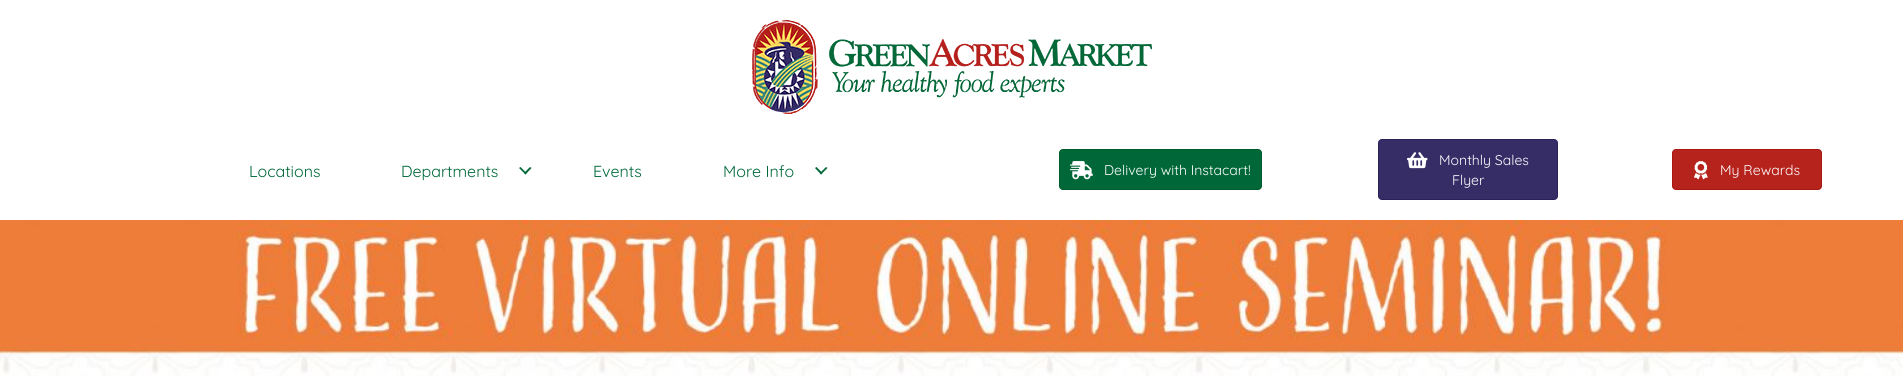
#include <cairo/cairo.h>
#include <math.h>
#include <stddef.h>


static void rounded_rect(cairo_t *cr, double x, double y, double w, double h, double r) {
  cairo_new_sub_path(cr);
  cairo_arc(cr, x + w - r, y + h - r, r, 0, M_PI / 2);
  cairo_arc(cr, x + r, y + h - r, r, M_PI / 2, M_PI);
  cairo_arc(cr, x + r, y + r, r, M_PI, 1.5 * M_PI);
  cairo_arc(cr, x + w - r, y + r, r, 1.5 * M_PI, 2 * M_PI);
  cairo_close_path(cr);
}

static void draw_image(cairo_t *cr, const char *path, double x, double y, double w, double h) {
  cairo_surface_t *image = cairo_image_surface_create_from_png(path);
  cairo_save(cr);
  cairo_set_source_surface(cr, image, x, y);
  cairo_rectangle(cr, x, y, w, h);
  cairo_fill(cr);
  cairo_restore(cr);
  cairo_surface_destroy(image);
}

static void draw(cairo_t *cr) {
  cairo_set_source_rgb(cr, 1, 1, 1);
  cairo_paint(cr);
  draw_image(cr, "images/1.png", 752, 20, 400, 94);
  cairo_set_source_rgb(cr, 0, 104 / 255.0, 56 / 255.0);
  cairo_new_path(cr);
  cairo_move_to(cr, 530, 167);
  cairo_line_to(cr, 531.5, 168);
  cairo_line_to(cr, 525.5, 174.5);
  cairo_line_to(cr, 524, 173);
  cairo_close_path(cr);
  cairo_fill(cr);
  cairo_new_path(cr);
  cairo_move_to(cr, 520.5, 167);
  cairo_line_to(cr, 526.5, 173);
  cairo_line_to(cr, 525.5, 174.5);
  cairo_line_to(cr, 519, 168);
  cairo_close_path(cr);
  cairo_fill(cr);
  cairo_new_path(cr);
  cairo_move_to(cr, 826, 167);
  cairo_line_to(cr, 827.5, 168);
  cairo_line_to(cr, 821, 174.5);
  cairo_line_to(cr, 820, 173);
  cairo_close_path(cr);
  cairo_fill(cr);
  cairo_new_path(cr);
  cairo_move_to(cr, 816.5, 167);
  cairo_line_to(cr, 822.5, 173);
  cairo_line_to(cr, 821, 174.5);
  cairo_line_to(cr, 815, 168);
  cairo_close_path(cr);
  cairo_fill(cr);
  rounded_rect(cr, 1059.5, 149.5, 202, 40, 3.5);
  cairo_fill_preserve(cr);
  cairo_set_source_rgb(cr, 0, 92 / 255.0, 44 / 255.0);
  cairo_set_line_width(cr, 1);
  cairo_stroke(cr);
  draw_image(cr, "images/2.png", 1070, 161, 23, 19);
  cairo_set_source_rgb(cr, 54 / 255.0, 44 / 255.0, 102 / 255.0);
  rounded_rect(cr, 1378.5, 139.5, 179, 60, 3.5);
  cairo_fill_preserve(cr);
  cairo_set_source_rgb(cr, 42 / 255.0, 32 / 255.0, 90 / 255.0);
  cairo_stroke(cr);
  draw_image(cr, "images/3.png", 1407, 152, 21, 17);
  cairo_set_source_rgb(cr, 181 / 255.0, 35 / 255.0, 28 / 255.0);
  rounded_rect(cr, 1672.5, 149.5, 149, 40, 3.5);
  cairo_fill_preserve(cr);
  cairo_set_source_rgb(cr, 169 / 255.0, 23 / 255.0, 16 / 255.0);
  cairo_stroke(cr);
  draw_image(cr, "images/4.png", 1694, 161, 14, 19);
  draw_image(cr, "images/5.png", 0, 220, 1903, 156);
  cairo_select_font_face(cr, "Quicksand", CAIRO_FONT_SLANT_NORMAL, CAIRO_FONT_WEIGHT_NORMAL);
  cairo_set_font_size(cr, 16);
  cairo_set_source_rgb(cr, 0, 104 / 255.0, 56 / 255.0);
  cairo_move_to(cr, 249, 177);
  cairo_show_text(cr, "Locations");
  cairo_move_to(cr, 401, 177);
  cairo_show_text(cr, "Departments");
  cairo_move_to(cr, 593, 177);
  cairo_show_text(cr, "Events");
  cairo_move_to(cr, 723, 177);
  cairo_show_text(cr, "More Info");
  cairo_set_font_size(cr, 14);
  cairo_set_source_rgb(cr, 1, 1, 1);
  cairo_move_to(cr, 1104, 175);
  cairo_show_text(cr, "Delivery with Instacart!");
  cairo_move_to(cr, 1439, 165);
  cairo_show_text(cr, "Monthly Sales");
  cairo_move_to(cr, 1452, 185);
  cairo_show_text(cr, "Flyer");
  cairo_move_to(cr, 1720, 175);
  cairo_show_text(cr, "My Rewards");
}

int main(void) {
  cairo_surface_t *surface = cairo_image_surface_create(CAIRO_FORMAT_RGB24, 1903, 376);
  cairo_t *cr = cairo_create(surface);
  cairo_font_options_t *options = cairo_font_options_create();
  cairo_font_options_set_hint_metrics(options, CAIRO_HINT_METRICS_OFF);
  cairo_font_options_set_hint_style(options, CAIRO_HINT_STYLE_NONE);
  cairo_set_font_options(cr, options);
  cairo_set_miter_limit(cr, 4);
  draw(cr);
  cairo_surface_write_to_png(surface, "out.png");
  cairo_font_options_destroy(options);
  cairo_destroy(cr);
  cairo_surface_destroy(surface);
  return 0;
}
